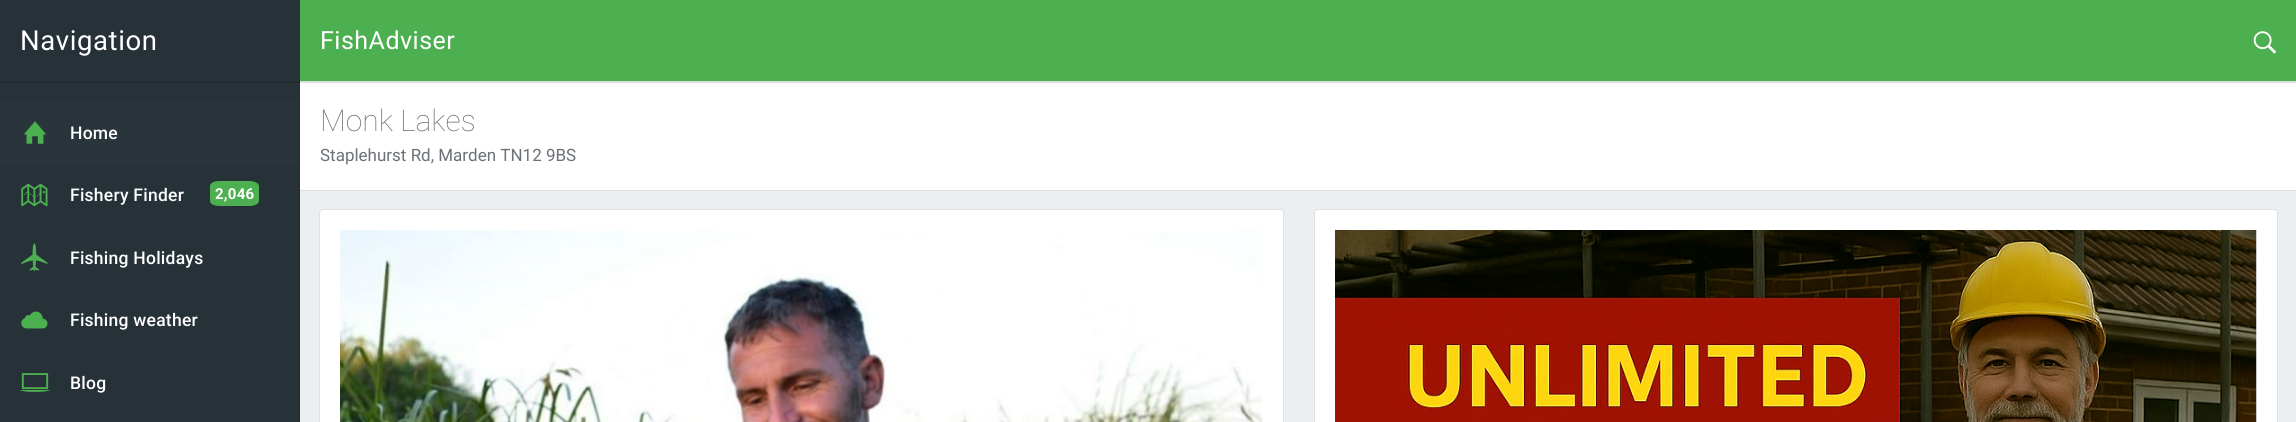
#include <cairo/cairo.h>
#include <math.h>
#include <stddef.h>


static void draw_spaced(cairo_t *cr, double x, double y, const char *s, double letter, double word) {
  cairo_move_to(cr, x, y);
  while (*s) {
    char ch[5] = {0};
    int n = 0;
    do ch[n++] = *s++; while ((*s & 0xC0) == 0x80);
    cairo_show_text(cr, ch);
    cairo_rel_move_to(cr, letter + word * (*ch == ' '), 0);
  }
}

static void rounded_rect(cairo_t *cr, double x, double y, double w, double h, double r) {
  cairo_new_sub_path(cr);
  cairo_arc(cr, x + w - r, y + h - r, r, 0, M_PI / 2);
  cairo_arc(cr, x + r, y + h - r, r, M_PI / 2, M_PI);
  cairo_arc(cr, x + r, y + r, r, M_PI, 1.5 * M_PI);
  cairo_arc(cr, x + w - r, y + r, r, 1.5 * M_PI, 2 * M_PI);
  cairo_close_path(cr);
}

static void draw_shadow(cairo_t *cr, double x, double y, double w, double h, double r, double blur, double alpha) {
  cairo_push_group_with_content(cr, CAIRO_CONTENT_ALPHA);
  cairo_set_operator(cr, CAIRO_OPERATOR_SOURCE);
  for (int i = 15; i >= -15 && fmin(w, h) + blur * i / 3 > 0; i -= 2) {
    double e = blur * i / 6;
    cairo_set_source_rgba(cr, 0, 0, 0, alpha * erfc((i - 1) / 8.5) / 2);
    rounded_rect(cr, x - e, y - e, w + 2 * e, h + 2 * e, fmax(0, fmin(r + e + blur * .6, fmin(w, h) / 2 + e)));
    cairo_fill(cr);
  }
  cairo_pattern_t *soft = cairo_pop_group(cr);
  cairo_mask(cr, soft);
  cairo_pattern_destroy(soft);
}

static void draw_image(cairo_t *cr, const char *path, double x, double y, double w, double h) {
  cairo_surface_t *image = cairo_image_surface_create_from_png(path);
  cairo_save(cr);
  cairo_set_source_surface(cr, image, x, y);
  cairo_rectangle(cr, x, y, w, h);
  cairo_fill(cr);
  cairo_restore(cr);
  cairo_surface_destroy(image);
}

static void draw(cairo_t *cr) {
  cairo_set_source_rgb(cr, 236 / 255.0, 239 / 255.0, 241 / 255.0);
  cairo_paint(cr);
  cairo_set_source_rgb(cr, 76 / 255.0, 175 / 255.0, 80 / 255.0);
  cairo_rectangle(cr, 300, 0, 1996, 81);
  cairo_fill(cr);
  cairo_set_source_rgb(cr, 1, 1, 1);
  cairo_rectangle(cr, 300, 81, 1996, 109);
  cairo_fill(cr);
  cairo_save(cr);
  cairo_rectangle(cr, 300, 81, 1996, 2);
  cairo_clip(cr);
  cairo_set_source_rgb(cr, 0, 0, 0);
  draw_shadow(cr, 299, -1, 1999, 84, 0, 0.5, 0.14);
  cairo_restore(cr);
  cairo_set_source_rgb(cr, 38 / 255.0, 50 / 255.0, 56 / 255.0);
  cairo_rectangle(cr, 0, 0, 300, 422);
  cairo_fill(cr);
  cairo_save(cr);
  cairo_rectangle(cr, 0, 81, 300, 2);
  cairo_clip(cr);
  cairo_set_source_rgb(cr, 0, 0, 0);
  draw_shadow(cr, -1, -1, 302, 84, 0, 0.5, 0.14);
  cairo_restore(cr);
  cairo_set_source_rgba(cr, 0, 0, 0, 0.11);
  cairo_rectangle(cr, 299, 81, 1, 341);
  cairo_fill(cr);
  cairo_set_source_rgb(cr, 41 / 255.0, 53 / 255.0, 59 / 255.0);
  cairo_rectangle(cr, 0, 101, 299, 63);
  cairo_fill(cr);
  draw_image(cr, "images/1.png", 23, 121, 24, 23);
  draw_image(cr, "images/2.png", 21, 183, 27, 24);
  cairo_set_source_rgb(cr, 76 / 255.0, 175 / 255.0, 80 / 255.0);
  cairo_new_path(cr);
  cairo_move_to(cr, 220, 181);
  cairo_line_to(cr, 249, 181);
  cairo_curve_to(cr, 254, 181, 259, 183, 259, 186);
  cairo_line_to(cr, 259, 201);
  cairo_curve_to(cr, 259, 204, 254, 206, 249, 206);
  cairo_line_to(cr, 220, 206);
  cairo_curve_to(cr, 214, 206, 210, 204, 210, 201);
  cairo_line_to(cr, 210, 186);
  cairo_curve_to(cr, 210, 183, 214, 181, 220, 181);
  cairo_close_path(cr);
  cairo_fill(cr);
  draw_image(cr, "images/3.png", 21, 243, 27, 29);
  draw_image(cr, "images/4.png", 21, 311, 27, 18);
  draw_image(cr, "images/5.png", 20, 373, 30, 19);
  draw_image(cr, "images/6.png", 2253, 31, 24, 23);
  cairo_set_source_rgb(cr, 220 / 255.0, 223 / 255.0, 224 / 255.0);
  cairo_rectangle(cr, 300, 190, 1996, 1);
  cairo_fill(cr);
  cairo_set_source_rgb(cr, 1, 1, 1);
  cairo_new_path(cr);
  cairo_move_to(cr, 323, 209);
  cairo_line_to(cr, 1280, 209);
  cairo_curve_to(cr, 1282, 209, 1284, 211, 1284, 213);
  cairo_line_to(cr, 1284, 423);
  cairo_line_to(cr, 319, 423);
  cairo_line_to(cr, 319, 213);
  cairo_curve_to(cr, 319, 211, 321, 209, 323, 209);
  cairo_close_path(cr);
  cairo_fill(cr);
  rounded_rect(cr, 319.5, 209.5, 964, 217, 3.5);
  cairo_set_source_rgba(cr, 0, 0, 0, 0.12);
  cairo_set_line_width(cr, 1);
  cairo_stroke(cr);
  draw_image(cr, "images/7.png", 340, 230, 923, 192);
  cairo_set_source_rgb(cr, 1, 1, 1);
  cairo_new_path(cr);
  cairo_move_to(cr, 1318, 209);
  cairo_line_to(cr, 2274, 209);
  cairo_curve_to(cr, 2276, 209, 2278, 211, 2278, 213);
  cairo_line_to(cr, 2278, 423);
  cairo_line_to(cr, 1314, 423);
  cairo_line_to(cr, 1314, 213);
  cairo_curve_to(cr, 1314, 211, 1316, 209, 1318, 209);
  cairo_close_path(cr);
  cairo_fill(cr);
  rounded_rect(cr, 1314.5, 209.5, 963, 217, 3.5);
  cairo_set_source_rgba(cr, 0, 0, 0, 0.12);
  cairo_stroke(cr);
  draw_image(cr, "images/8.png", 1335, 230, 922, 192);
  cairo_select_font_face(cr, "Roboto", CAIRO_FONT_SLANT_NORMAL, CAIRO_FONT_WEIGHT_NORMAL);
  cairo_set_font_size(cr, 27.5);
  cairo_set_source_rgb(cr, 1, 1, 1);
  draw_spaced(cr, 20, 50, "Navigation", 0.6, 0);
  cairo_select_font_face(cr, "Roboto Medium", CAIRO_FONT_SLANT_NORMAL, CAIRO_FONT_WEIGHT_NORMAL);
  cairo_set_font_size(cr, 17.5);
  draw_spaced(cr, 70, 139, "Home", 0.25, 0);
  draw_spaced(cr, 70, 201, "Fishery Finder", 0.25, 0);
  cairo_select_font_face(cr, "Roboto", CAIRO_FONT_SLANT_NORMAL, CAIRO_FONT_WEIGHT_BOLD);
  cairo_set_font_size(cr, 15);
  draw_spaced(cr, 215, 199, "2,046", 0.25, 0);
  cairo_select_font_face(cr, "Roboto Medium", CAIRO_FONT_SLANT_NORMAL, CAIRO_FONT_WEIGHT_NORMAL);
  cairo_set_font_size(cr, 17.5);
  draw_spaced(cr, 70, 264, "Fishing Holidays", 0.25, 0);
  draw_spaced(cr, 70, 326, "Fishing weather", 0.25, 0);
  draw_spaced(cr, 70, 389, "Blog", 0.25, 0);
  cairo_select_font_face(cr, "Roboto", CAIRO_FONT_SLANT_NORMAL, CAIRO_FONT_WEIGHT_NORMAL);
  cairo_set_font_size(cr, 25);
  draw_spaced(cr, 320, 49, "FishAdviser", 0.5, 0);
  cairo_select_font_face(cr, "Roboto Thin", CAIRO_FONT_SLANT_NORMAL, CAIRO_FONT_WEIGHT_NORMAL);
  cairo_set_font_size(cr, 30);
  cairo_set_source_rgb(cr, 108 / 255.0, 113 / 255.0, 119 / 255.0);
  cairo_move_to(cr, 320, 131);
  cairo_show_text(cr, "Monk Lakes");
  cairo_select_font_face(cr, "Roboto", CAIRO_FONT_SLANT_NORMAL, CAIRO_FONT_WEIGHT_NORMAL);
  cairo_set_font_size(cr, 17);
  cairo_move_to(cr, 320, 161);
  cairo_show_text(cr, "Staplehurst Rd, Marden TN12 9BS");
}

int main(void) {
  cairo_surface_t *surface = cairo_image_surface_create(CAIRO_FORMAT_RGB24, 2296, 422);
  cairo_t *cr = cairo_create(surface);
  cairo_font_options_t *options = cairo_font_options_create();
  cairo_font_options_set_hint_metrics(options, CAIRO_HINT_METRICS_OFF);
  cairo_font_options_set_hint_style(options, CAIRO_HINT_STYLE_NONE);
  cairo_set_font_options(cr, options);
  cairo_set_miter_limit(cr, 4);
  draw(cr);
  cairo_surface_write_to_png(surface, "out.png");
  cairo_font_options_destroy(options);
  cairo_destroy(cr);
  cairo_surface_destroy(surface);
  return 0;
}
